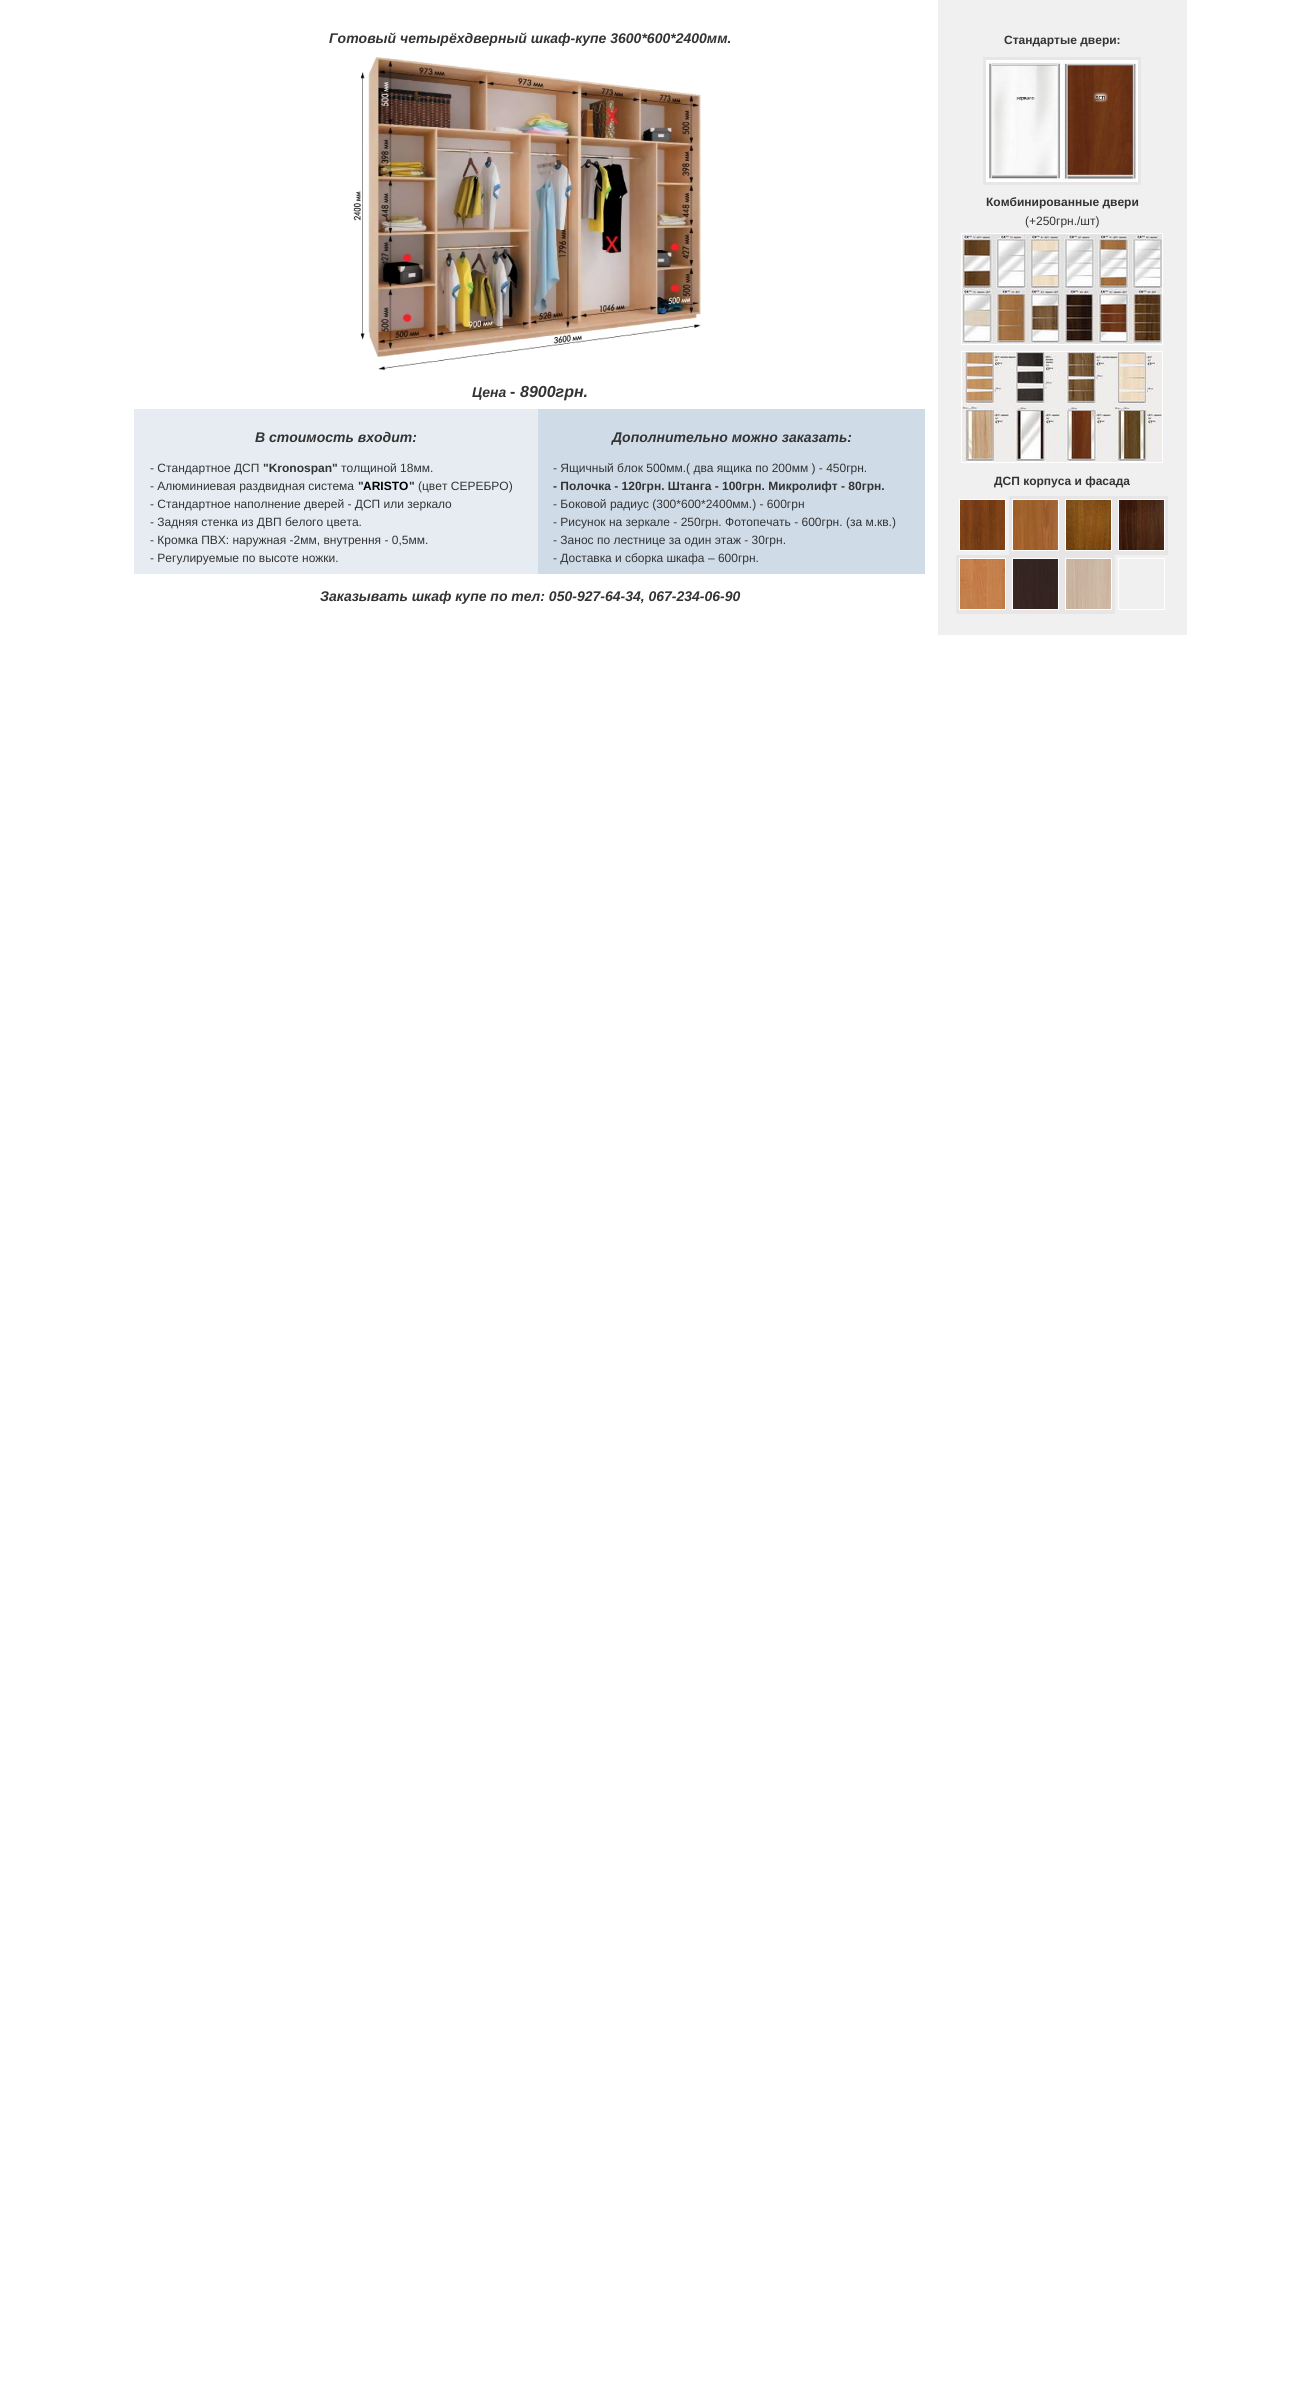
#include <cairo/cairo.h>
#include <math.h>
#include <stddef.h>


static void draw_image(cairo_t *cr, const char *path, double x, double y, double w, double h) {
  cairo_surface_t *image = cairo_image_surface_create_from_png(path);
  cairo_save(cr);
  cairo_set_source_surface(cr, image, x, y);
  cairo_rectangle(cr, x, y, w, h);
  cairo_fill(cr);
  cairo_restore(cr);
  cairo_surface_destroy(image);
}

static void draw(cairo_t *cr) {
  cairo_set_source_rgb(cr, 1, 1, 1);
  cairo_paint(cr);
  draw_image(cr, "images/1.png", 353, 57, 349, 314);
  cairo_set_source_rgb(cr, 230 / 255.0, 236 / 255.0, 242 / 255.0);
  cairo_rectangle(cr, 134, 409, 404, 165);
  cairo_fill(cr);
  cairo_set_source_rgb(cr, 207 / 255.0, 219 / 255.0, 231 / 255.0);
  cairo_rectangle(cr, 538, 409, 387, 165);
  cairo_fill(cr);
  cairo_set_source_rgb(cr, 240 / 255.0, 240 / 255.0, 240 / 255.0);
  cairo_rectangle(cr, 938, 0, 249, 635);
  cairo_fill(cr);
  cairo_set_source_rgb(cr, 231 / 255.0, 229 / 255.0, 230 / 255.0);
  cairo_rectangle(cr, 983, 57, 158, 128);
  cairo_fill(cr);
  cairo_rectangle(cr, 986.5, 60.5, 151, 121);
  cairo_set_source_rgb(cr, 1, 1, 1);
  cairo_set_line_width(cr, 1);
  cairo_stroke(cr);
  draw_image(cr, "images/2.png", 987, 61, 150, 120);
  cairo_rectangle(cr, 961.5, 233.5, 201, 111);
  cairo_stroke(cr);
  draw_image(cr, "images/3.png", 962, 234, 200, 110);
  cairo_rectangle(cr, 961.5, 351.5, 201, 111);
  cairo_stroke(cr);
  draw_image(cr, "images/4.png", 962, 352, 200, 110);
  cairo_rectangle(cr, 959.5, 499.5, 46, 51);
  cairo_stroke(cr);
  draw_image(cr, "images/5.png", 960, 500, 45, 50);
  cairo_set_source_rgb(cr, 231 / 255.0, 229 / 255.0, 230 / 255.0);
  cairo_rectangle(cr, 1009, 496, 159, 59);
  cairo_fill(cr);
  cairo_rectangle(cr, 1012.5, 499.5, 46, 51);
  cairo_set_source_rgb(cr, 1, 1, 1);
  cairo_stroke(cr);
  draw_image(cr, "images/6.png", 1013, 500, 45, 50);
  cairo_rectangle(cr, 1065.5, 499.5, 46, 51);
  cairo_stroke(cr);
  draw_image(cr, "images/7.png", 1066, 500, 45, 50);
  cairo_rectangle(cr, 1118.5, 499.5, 46, 51);
  cairo_stroke(cr);
  draw_image(cr, "images/8.png", 1119, 500, 45, 50);
  cairo_set_source_rgb(cr, 231 / 255.0, 229 / 255.0, 230 / 255.0);
  cairo_rectangle(cr, 956, 555, 159, 59);
  cairo_fill(cr);
  cairo_rectangle(cr, 959.5, 558.5, 46, 51);
  cairo_set_source_rgb(cr, 1, 1, 1);
  cairo_stroke(cr);
  draw_image(cr, "images/9.png", 960, 559, 45, 50);
  cairo_rectangle(cr, 1012.5, 558.5, 46, 51);
  cairo_stroke(cr);
  draw_image(cr, "images/10.png", 1013, 559, 45, 50);
  cairo_rectangle(cr, 1065.5, 558.5, 46, 51);
  cairo_stroke(cr);
  draw_image(cr, "images/11.png", 1066, 559, 45, 50);
  cairo_rectangle(cr, 1118.5, 558.5, 46, 51);
  cairo_stroke(cr);
  cairo_select_font_face(cr, "Liberation Sans", CAIRO_FONT_SLANT_ITALIC, CAIRO_FONT_WEIGHT_BOLD);
  cairo_set_font_size(cr, 14);
  cairo_set_source_rgb(cr, 51 / 255.0, 51 / 255.0, 51 / 255.0);
  cairo_move_to(cr, 329, 43);
  cairo_show_text(cr, "Готовый четырёхдверный шкаф-купе 3600*600*2400мм.");
  cairo_move_to(cr, 472, 397);
  cairo_show_text(cr, "Цена");
  cairo_select_font_face(cr, "Liberation Sans", CAIRO_FONT_SLANT_NORMAL, CAIRO_FONT_WEIGHT_BOLD);
  cairo_set_font_size(cr, 16);
  cairo_move_to(cr, 510, 397);
  cairo_show_text(cr, "-");
  cairo_select_font_face(cr, "Liberation Sans", CAIRO_FONT_SLANT_ITALIC, CAIRO_FONT_WEIGHT_BOLD);
  cairo_move_to(cr, 520, 397);
  cairo_show_text(cr, "8900грн.");
  cairo_set_font_size(cr, 14);
  cairo_move_to(cr, 255, 442);
  cairo_show_text(cr, "В стоимость входит:");
  cairo_select_font_face(cr, "Liberation Sans", CAIRO_FONT_SLANT_NORMAL, CAIRO_FONT_WEIGHT_NORMAL);
  cairo_set_font_size(cr, 12);
  cairo_move_to(cr, 150, 472);
  cairo_show_text(cr, "- Стандартное ДСП");
  cairo_select_font_face(cr, "Liberation Sans", CAIRO_FONT_SLANT_NORMAL, CAIRO_FONT_WEIGHT_BOLD);
  cairo_move_to(cr, 263, 472);
  cairo_show_text(cr, "\"Kronospan\"");
  cairo_select_font_face(cr, "Liberation Sans", CAIRO_FONT_SLANT_NORMAL, CAIRO_FONT_WEIGHT_NORMAL);
  cairo_move_to(cr, 341, 472);
  cairo_show_text(cr, "толщиной 18мм.");
  cairo_move_to(cr, 150, 490);
  cairo_show_text(cr, "- Алюминиевая раздвидная система");
  cairo_select_font_face(cr, "Liberation Sans", CAIRO_FONT_SLANT_NORMAL, CAIRO_FONT_WEIGHT_BOLD);
  cairo_move_to(cr, 358, 490);
  cairo_show_text(cr, "\"");
  cairo_set_source_rgb(cr, 0, 0, 0);
  cairo_move_to(cr, 363, 490);
  cairo_show_text(cr, "ARISTO");
  cairo_set_source_rgb(cr, 51 / 255.0, 51 / 255.0, 51 / 255.0);
  cairo_move_to(cr, 409, 490);
  cairo_show_text(cr, "\"");
  cairo_select_font_face(cr, "Liberation Sans", CAIRO_FONT_SLANT_NORMAL, CAIRO_FONT_WEIGHT_NORMAL);
  cairo_move_to(cr, 418, 490);
  cairo_show_text(cr, "(цвет СЕРЕБРО)");
  cairo_move_to(cr, 150, 508);
  cairo_show_text(cr, "- Стандартное наполнение дверей - ДСП или зеркало");
  cairo_move_to(cr, 150, 526);
  cairo_show_text(cr, "- Задняя стенка из ДВП белого цвета.");
  cairo_move_to(cr, 150, 544);
  cairo_show_text(cr, "- Кромка ПВХ: наружная -2мм, внутрення - 0,5мм.");
  cairo_move_to(cr, 150, 562);
  cairo_show_text(cr, "- Регулируемые по высоте ножки.");
  cairo_select_font_face(cr, "Liberation Sans", CAIRO_FONT_SLANT_ITALIC, CAIRO_FONT_WEIGHT_BOLD);
  cairo_set_font_size(cr, 14);
  cairo_move_to(cr, 612, 442);
  cairo_show_text(cr, "Дополнительно можно заказать:");
  cairo_select_font_face(cr, "Liberation Sans", CAIRO_FONT_SLANT_NORMAL, CAIRO_FONT_WEIGHT_NORMAL);
  cairo_set_font_size(cr, 12);
  cairo_move_to(cr, 553, 472);
  cairo_show_text(cr, "- Ящичный блок 500мм.( два ящика по 200мм ) - 450грн.");
  cairo_select_font_face(cr, "Liberation Sans", CAIRO_FONT_SLANT_NORMAL, CAIRO_FONT_WEIGHT_BOLD);
  cairo_move_to(cr, 553, 490);
  cairo_show_text(cr, "- Полочка - 120грн. Штанга - 100грн. Микролифт - 80грн.");
  cairo_select_font_face(cr, "Liberation Sans", CAIRO_FONT_SLANT_NORMAL, CAIRO_FONT_WEIGHT_NORMAL);
  cairo_move_to(cr, 553, 508);
  cairo_show_text(cr, "- Боковой радиус (300*600*2400мм.) - 600грн");
  cairo_move_to(cr, 553, 526);
  cairo_show_text(cr, "- Рисунок на зеркале - 250грн. Фотопечать - 600грн. (за м.кв.)");
  cairo_move_to(cr, 553, 544);
  cairo_show_text(cr, "- Занос по лестнице за один этаж - 30грн.");
  cairo_move_to(cr, 553, 562);
  cairo_show_text(cr, "- Доставка и сборка шкафа – 600грн.");
  cairo_select_font_face(cr, "Liberation Sans", CAIRO_FONT_SLANT_ITALIC, CAIRO_FONT_WEIGHT_BOLD);
  cairo_set_font_size(cr, 14);
  cairo_move_to(cr, 320, 601);
  cairo_show_text(cr, "Заказывать шкаф купе по тел: 050-927-64-34, 067-234-06-90");
  cairo_select_font_face(cr, "Liberation Sans", CAIRO_FONT_SLANT_NORMAL, CAIRO_FONT_WEIGHT_BOLD);
  cairo_set_font_size(cr, 12);
  cairo_move_to(cr, 1004, 44);
  cairo_show_text(cr, "Стандартые двери:");
  cairo_move_to(cr, 986, 206);
  cairo_show_text(cr, "Комбинированные двери");
  cairo_select_font_face(cr, "Liberation Sans", CAIRO_FONT_SLANT_NORMAL, CAIRO_FONT_WEIGHT_NORMAL);
  cairo_move_to(cr, 1025, 225);
  cairo_show_text(cr, "(+250грн./шт)");
  cairo_select_font_face(cr, "Liberation Sans", CAIRO_FONT_SLANT_NORMAL, CAIRO_FONT_WEIGHT_BOLD);
  cairo_move_to(cr, 994, 485);
  cairo_show_text(cr, "ДСП корпуса и фасада");
}

int main(void) {
  cairo_surface_t *surface = cairo_image_surface_create(CAIRO_FORMAT_RGB24, 1309, 2389);
  cairo_t *cr = cairo_create(surface);
  cairo_font_options_t *options = cairo_font_options_create();
  cairo_font_options_set_hint_metrics(options, CAIRO_HINT_METRICS_OFF);
  cairo_font_options_set_hint_style(options, CAIRO_HINT_STYLE_NONE);
  cairo_set_font_options(cr, options);
  cairo_set_miter_limit(cr, 4);
  draw(cr);
  cairo_surface_write_to_png(surface, "out.png");
  cairo_font_options_destroy(options);
  cairo_destroy(cr);
  cairo_surface_destroy(surface);
  return 0;
}
